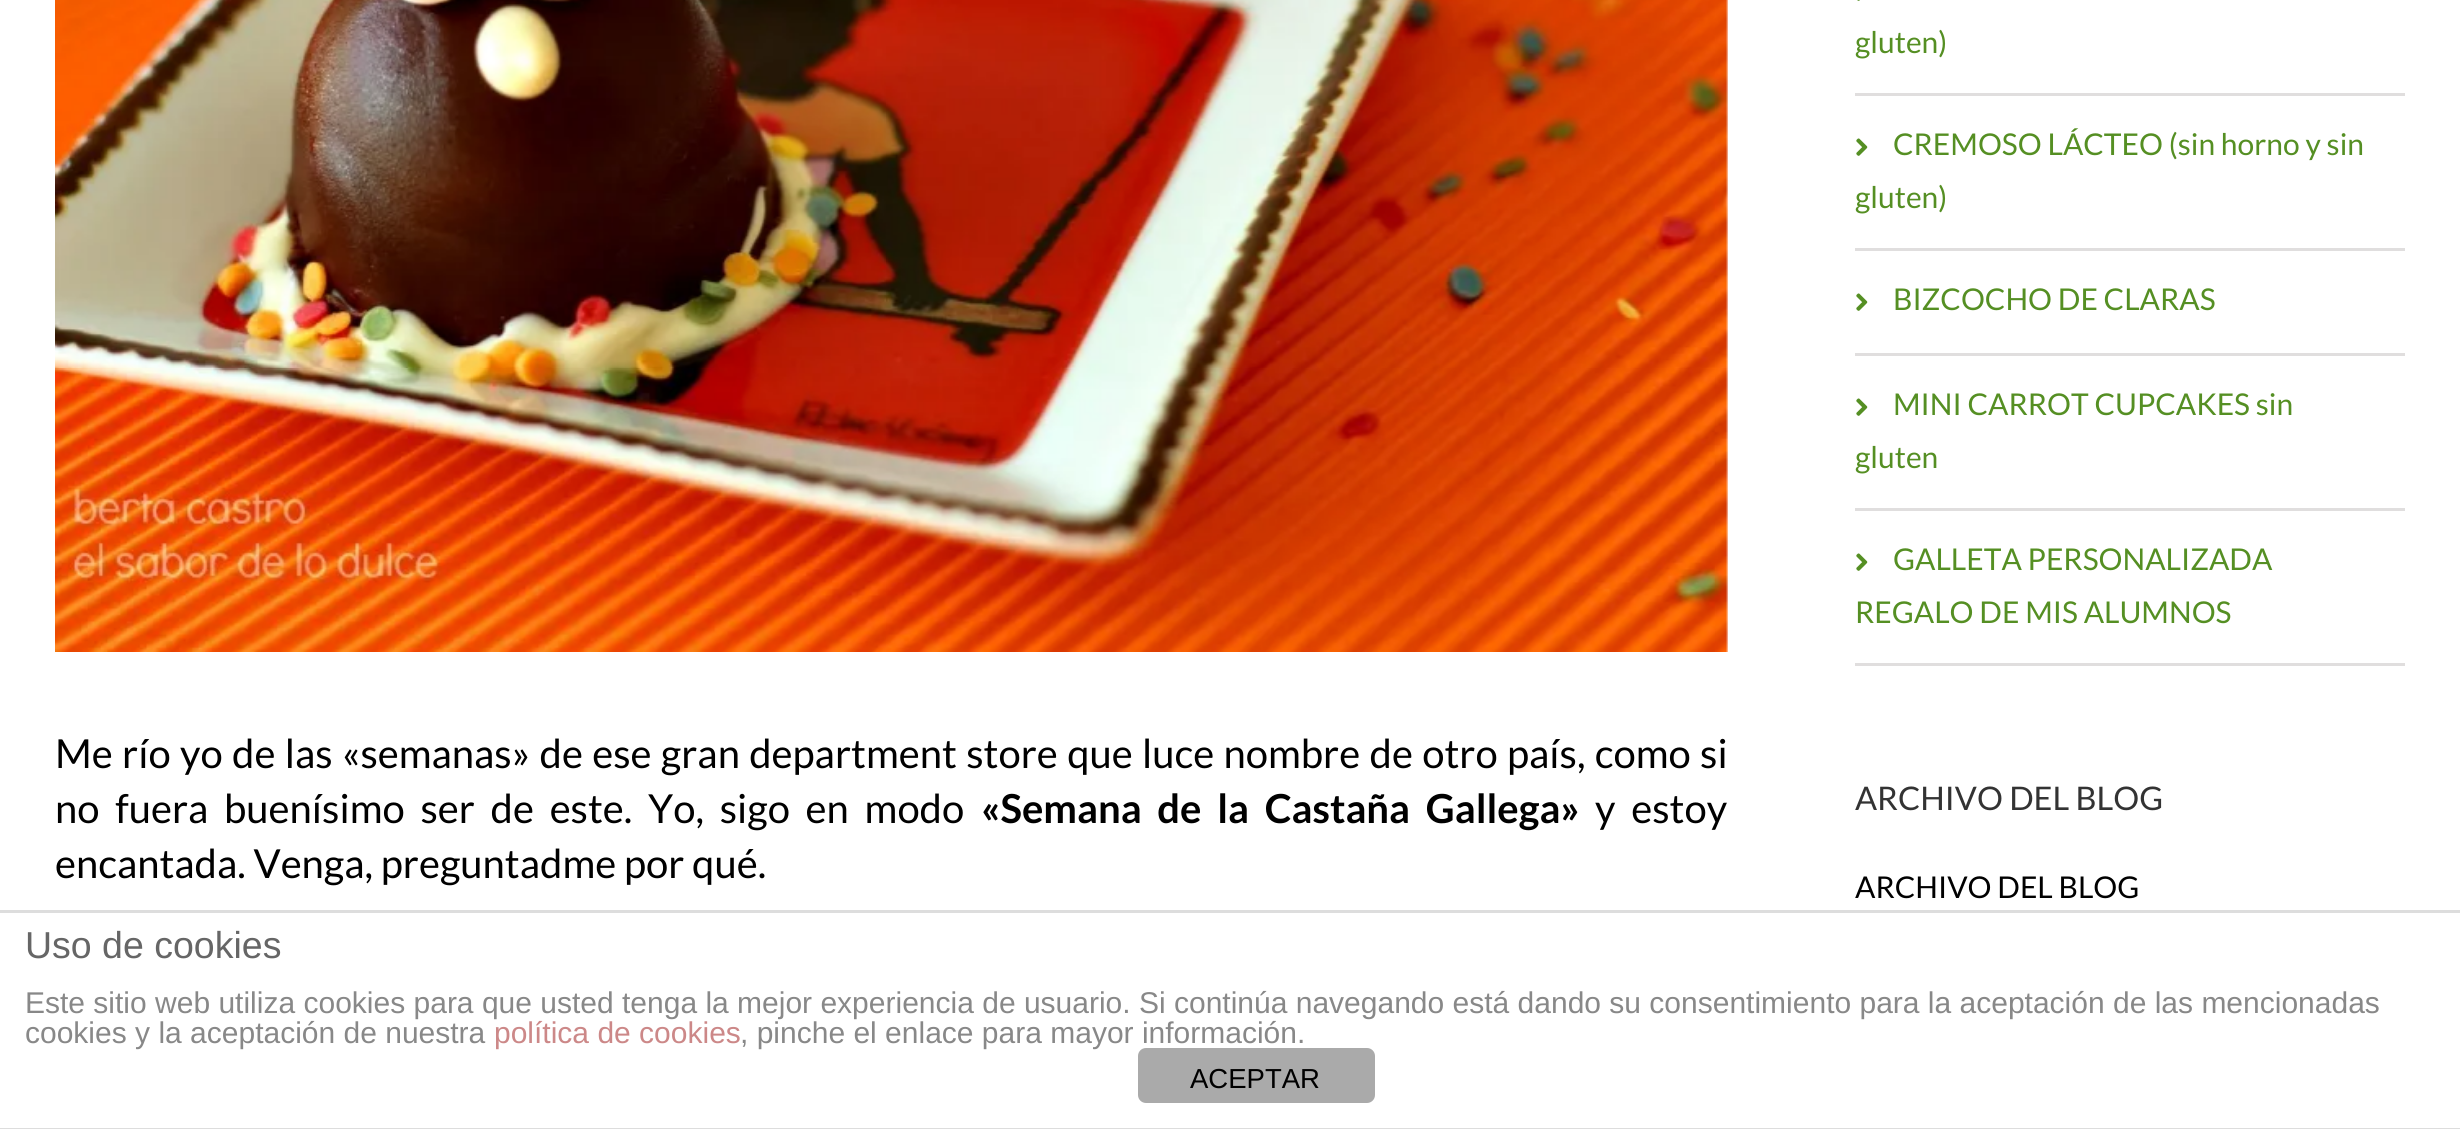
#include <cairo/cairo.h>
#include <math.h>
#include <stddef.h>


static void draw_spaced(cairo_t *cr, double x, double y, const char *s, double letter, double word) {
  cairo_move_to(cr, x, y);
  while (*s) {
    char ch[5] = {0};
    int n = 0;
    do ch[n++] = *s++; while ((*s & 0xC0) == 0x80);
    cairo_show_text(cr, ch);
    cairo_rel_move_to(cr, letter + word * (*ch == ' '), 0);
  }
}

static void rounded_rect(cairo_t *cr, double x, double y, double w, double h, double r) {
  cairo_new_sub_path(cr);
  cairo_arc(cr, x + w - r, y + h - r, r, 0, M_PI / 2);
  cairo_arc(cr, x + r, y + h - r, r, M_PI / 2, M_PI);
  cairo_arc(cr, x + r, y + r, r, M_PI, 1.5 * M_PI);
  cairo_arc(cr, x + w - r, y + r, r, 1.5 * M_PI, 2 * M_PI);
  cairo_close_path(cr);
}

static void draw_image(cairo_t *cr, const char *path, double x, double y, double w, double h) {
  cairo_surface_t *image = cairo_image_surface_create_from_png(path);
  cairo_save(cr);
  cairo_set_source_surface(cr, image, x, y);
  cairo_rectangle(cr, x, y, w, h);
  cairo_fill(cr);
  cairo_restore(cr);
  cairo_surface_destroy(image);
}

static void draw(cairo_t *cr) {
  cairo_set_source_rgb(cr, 1, 1, 1);
  cairo_paint(cr);
  draw_image(cr, "images/1.png", 55, 0, 1673, 652);
  cairo_set_source_rgb(cr, 224 / 255.0, 222 / 255.0, 222 / 255.0);
  cairo_rectangle(cr, 1855, 93, 550, 3);
  cairo_fill(cr);
  draw_image(cr, "images/2.png", 1857, 0, 3, 1);
  cairo_rectangle(cr, 1855, 248, 550, 3);
  cairo_fill(cr);
  draw_image(cr, "images/3.png", 1856, 138, 12, 18);
  cairo_rectangle(cr, 1855, 353, 550, 3);
  cairo_fill(cr);
  draw_image(cr, "images/3.png", 1856, 293, 12, 18);
  cairo_rectangle(cr, 1855, 508, 550, 3);
  cairo_fill(cr);
  draw_image(cr, "images/3.png", 1856, 398, 12, 18);
  cairo_rectangle(cr, 1855, 663, 550, 3);
  cairo_fill(cr);
  draw_image(cr, "images/3.png", 1856, 553, 12, 18);
  cairo_set_source_rgb(cr, 221 / 255.0, 221 / 255.0, 221 / 255.0);
  cairo_rectangle(cr, 0, 910, 2460, 3);
  cairo_fill(cr);
  cairo_rectangle(cr, 0, 1128, 2460, 1);
  cairo_fill(cr);
  cairo_set_source_rgb(cr, 170 / 255.0, 170 / 255.0, 170 / 255.0);
  rounded_rect(cr, 1138, 1048, 237, 55, 8);
  cairo_fill(cr);
  cairo_select_font_face(cr, "Lato", CAIRO_FONT_SLANT_NORMAL, CAIRO_FONT_WEIGHT_NORMAL);
  cairo_set_font_size(cr, 40);
  cairo_set_source_rgb(cr, 0, 0, 0);
  draw_spaced(cr, 55, 768, "Me río yo de las «semanas» de ese gran department store que luce nombre de otro país, como si", 0, 1.6);
  draw_spaced(cr, 55, 823, "no fuera buenísimo ser de este. Yo, sigo en modo", 0, 8);
  cairo_select_font_face(cr, "Lato", CAIRO_FONT_SLANT_NORMAL, CAIRO_FONT_WEIGHT_BOLD);
  draw_spaced(cr, 981, 823, "«Semana de la Castaña Gallega»", 0, 8);
  cairo_select_font_face(cr, "Lato", CAIRO_FONT_SLANT_NORMAL, CAIRO_FONT_WEIGHT_NORMAL);
  draw_spaced(cr, 1595, 823, "y estoy", 0, 8);
  cairo_move_to(cr, 55, 878);
  cairo_show_text(cr, "encantada. Venga, preguntadme por qué.");
  cairo_set_font_size(cr, 30);
  cairo_set_source_rgb(cr, 85 / 255.0, 143 / 255.0, 35 / 255.0);
  cairo_move_to(cr, 1855, 53);
  cairo_show_text(cr, "gluten)");
  cairo_move_to(cr, 1893, 155);
  cairo_show_text(cr, "CREMOSO LÁCTEO (sin horno y sin");
  cairo_move_to(cr, 1855, 208);
  cairo_show_text(cr, "gluten)");
  cairo_move_to(cr, 1893, 310);
  cairo_show_text(cr, "BIZCOCHO DE CLARAS");
  cairo_move_to(cr, 1893, 415);
  cairo_show_text(cr, "MINI CARROT CUPCAKES sin");
  cairo_move_to(cr, 1855, 468);
  cairo_show_text(cr, "gluten");
  cairo_move_to(cr, 1893, 570);
  cairo_show_text(cr, "GALLETA PERSONALIZADA");
  cairo_move_to(cr, 1855, 623);
  cairo_show_text(cr, "REGALO DE MIS ALUMNOS");
  cairo_set_font_size(cr, 32.5);
  cairo_set_source_rgb(cr, 51 / 255.0, 51 / 255.0, 51 / 255.0);
  cairo_move_to(cr, 1855, 810);
  cairo_show_text(cr, "ARCHIVO DEL BLOG");
  cairo_set_font_size(cr, 30);
  cairo_set_source_rgb(cr, 0, 0, 0);
  cairo_move_to(cr, 1855, 898);
  cairo_show_text(cr, "ARCHIVO DEL BLOG");
  cairo_select_font_face(cr, "Liberation Sans", CAIRO_FONT_SLANT_NORMAL, CAIRO_FONT_WEIGHT_NORMAL);
  cairo_set_font_size(cr, 37.5);
  cairo_set_source_rgb(cr, 102 / 255.0, 102 / 255.0, 102 / 255.0);
  cairo_move_to(cr, 25, 958);
  cairo_show_text(cr, "Uso de cookies");
  cairo_set_font_size(cr, 30);
  cairo_set_source_rgb(cr, 136 / 255.0, 136 / 255.0, 136 / 255.0);
  cairo_move_to(cr, 25, 1013);
  cairo_show_text(cr, "Este sitio web utiliza cookies para que usted tenga la mejor experiencia de usuario. Si continúa navegando está dando su consentimiento para la aceptación de las mencionadas");
  cairo_move_to(cr, 25, 1043);
  cairo_show_text(cr, "cookies y la aceptación de nuestra");
  cairo_set_source_rgb(cr, 204 / 255.0, 136 / 255.0, 136 / 255.0);
  cairo_move_to(cr, 494, 1043);
  cairo_show_text(cr, "política de cookies");
  cairo_set_source_rgb(cr, 136 / 255.0, 136 / 255.0, 136 / 255.0);
  cairo_move_to(cr, 740, 1043);
  cairo_show_text(cr, ", pinche el enlace para mayor información.");
  cairo_set_font_size(cr, 27.5);
  cairo_set_source_rgb(cr, 0, 0, 0);
  cairo_move_to(cr, 1190, 1088);
  cairo_show_text(cr, "ACEPTAR");
}

int main(void) {
  cairo_surface_t *surface = cairo_image_surface_create(CAIRO_FORMAT_RGB24, 2460, 1129);
  cairo_t *cr = cairo_create(surface);
  cairo_font_options_t *options = cairo_font_options_create();
  cairo_font_options_set_hint_metrics(options, CAIRO_HINT_METRICS_OFF);
  cairo_font_options_set_hint_style(options, CAIRO_HINT_STYLE_NONE);
  cairo_set_font_options(cr, options);
  cairo_set_miter_limit(cr, 4);
  draw(cr);
  cairo_surface_write_to_png(surface, "out.png");
  cairo_font_options_destroy(options);
  cairo_destroy(cr);
  cairo_surface_destroy(surface);
  return 0;
}
